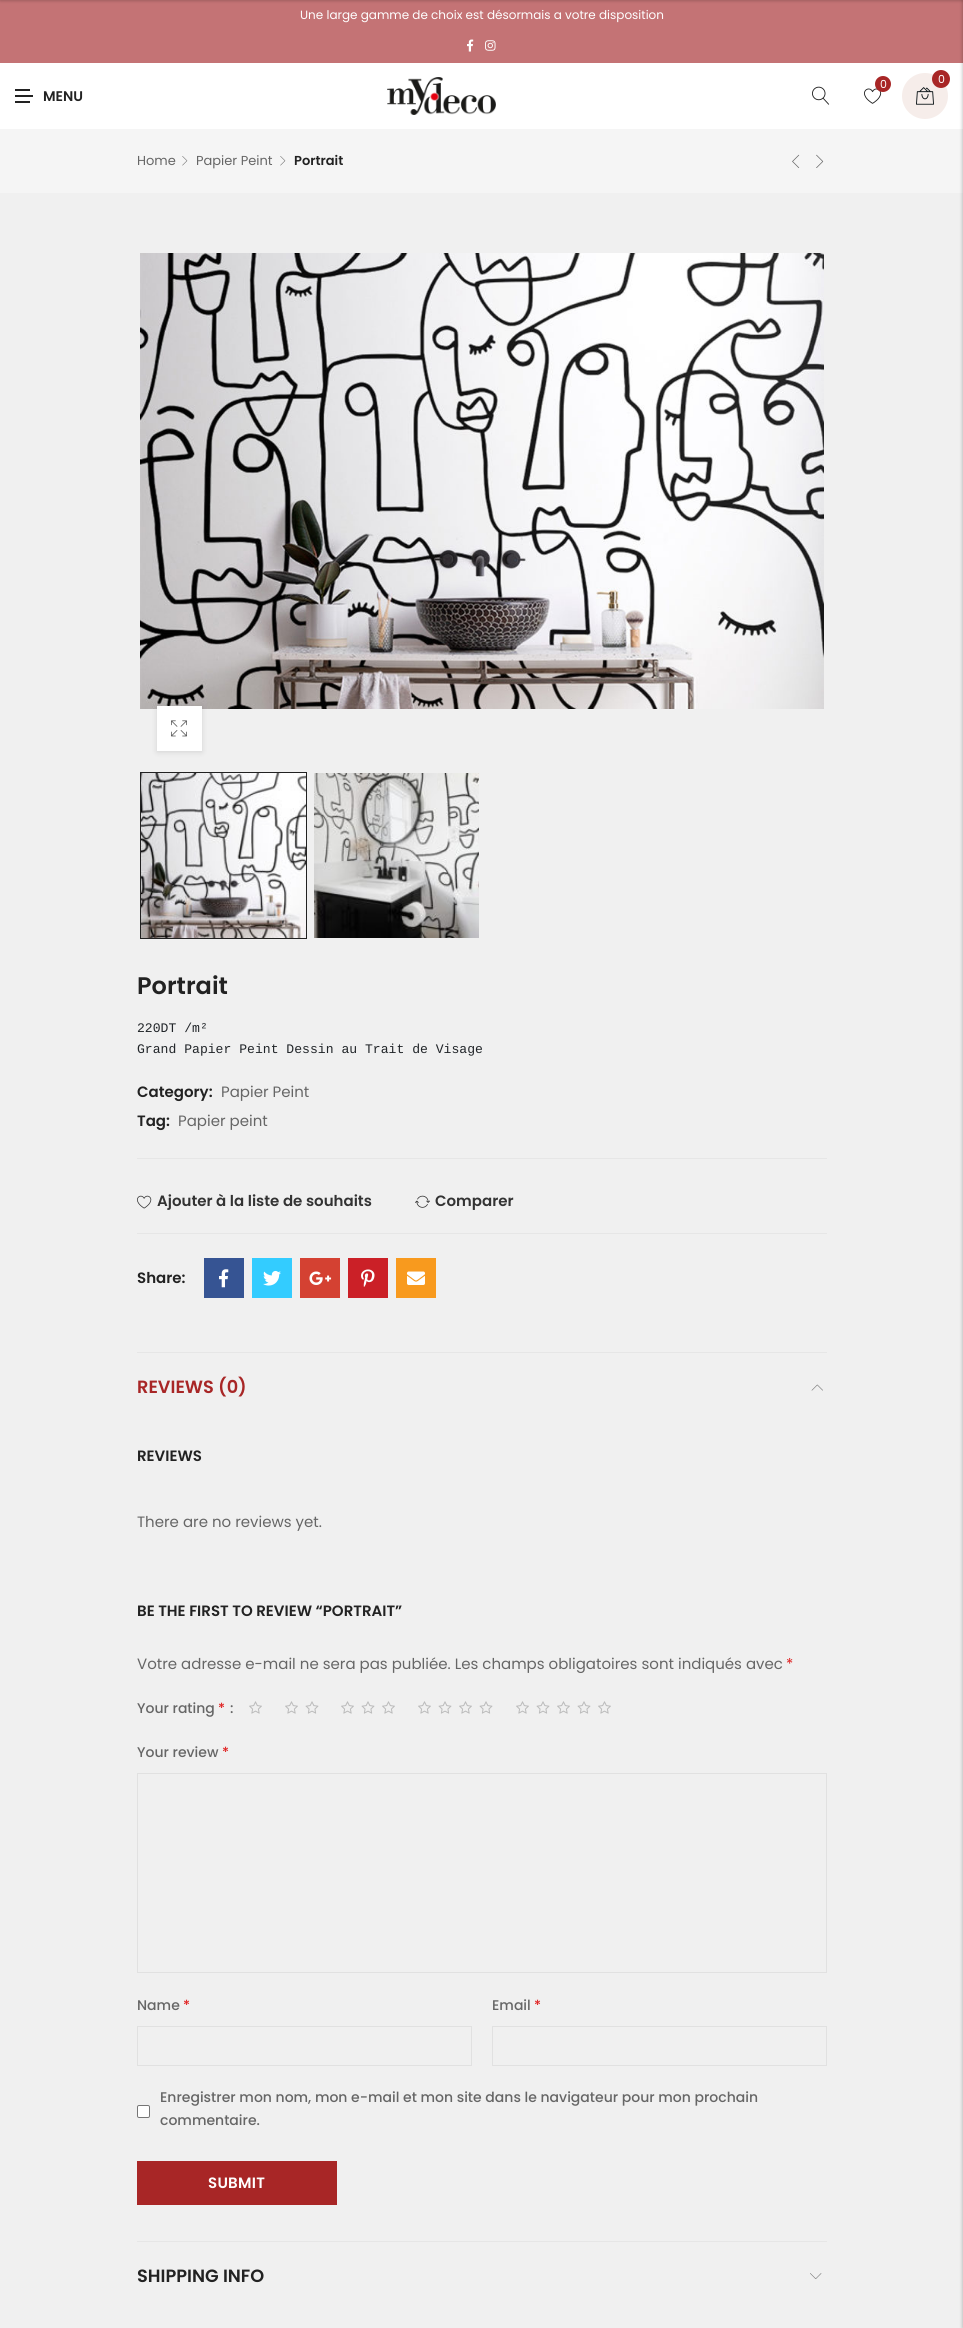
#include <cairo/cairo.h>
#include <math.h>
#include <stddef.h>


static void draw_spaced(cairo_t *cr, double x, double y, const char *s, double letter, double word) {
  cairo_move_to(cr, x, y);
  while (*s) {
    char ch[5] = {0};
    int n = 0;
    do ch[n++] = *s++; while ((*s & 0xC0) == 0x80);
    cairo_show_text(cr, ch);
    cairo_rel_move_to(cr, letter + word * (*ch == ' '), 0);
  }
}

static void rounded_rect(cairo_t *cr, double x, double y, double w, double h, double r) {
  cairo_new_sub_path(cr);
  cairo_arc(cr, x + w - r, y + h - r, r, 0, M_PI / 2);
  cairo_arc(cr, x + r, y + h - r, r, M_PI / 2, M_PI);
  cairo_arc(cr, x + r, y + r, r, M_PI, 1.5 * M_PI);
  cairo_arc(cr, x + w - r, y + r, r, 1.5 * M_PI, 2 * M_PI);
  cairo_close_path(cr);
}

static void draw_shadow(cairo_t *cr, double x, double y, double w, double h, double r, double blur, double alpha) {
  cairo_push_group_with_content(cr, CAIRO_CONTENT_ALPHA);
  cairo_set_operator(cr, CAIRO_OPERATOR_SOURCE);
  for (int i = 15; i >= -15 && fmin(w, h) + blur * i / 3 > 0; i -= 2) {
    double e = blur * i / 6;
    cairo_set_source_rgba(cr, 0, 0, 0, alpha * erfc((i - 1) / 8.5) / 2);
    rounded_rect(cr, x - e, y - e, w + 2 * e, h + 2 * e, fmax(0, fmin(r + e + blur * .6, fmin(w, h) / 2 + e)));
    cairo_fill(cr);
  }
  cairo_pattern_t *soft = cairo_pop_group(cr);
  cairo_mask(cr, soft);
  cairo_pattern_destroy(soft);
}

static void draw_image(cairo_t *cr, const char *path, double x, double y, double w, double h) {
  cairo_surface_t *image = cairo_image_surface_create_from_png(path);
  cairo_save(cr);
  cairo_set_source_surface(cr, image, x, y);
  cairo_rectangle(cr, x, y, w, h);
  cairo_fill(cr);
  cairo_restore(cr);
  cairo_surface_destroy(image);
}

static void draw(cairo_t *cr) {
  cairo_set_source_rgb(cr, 240 / 255.0, 240 / 255.0, 240 / 255.0);
  cairo_paint(cr);
  cairo_set_source_rgb(cr, 196 / 255.0, 115 / 255.0, 117 / 255.0);
  cairo_rectangle(cr, 0, 0, 963, 63);
  cairo_fill(cr);
  cairo_set_source_rgb(cr, 0, 0, 0);
  draw_shadow(cr, 0, -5, 963, 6, 0, 1.5, 0.2);
  draw_image(cr, "images/1.png", 467, 39, 7, 13);
  draw_image(cr, "images/2.png", 485, 40, 11, 11);
  cairo_set_source_rgb(cr, 1, 1, 1);
  cairo_rectangle(cr, 0, 63, 963, 66);
  cairo_fill(cr);
  cairo_set_source_rgb(cr, 34 / 255.0, 34 / 255.0, 34 / 255.0);
  cairo_rectangle(cr, 15, 95, 18, 2);
  cairo_fill(cr);
  cairo_rectangle(cr, 15, 89, 15, 2);
  cairo_fill(cr);
  cairo_rectangle(cr, 15, 101, 15, 2);
  cairo_fill(cr);
  draw_image(cr, "images/3.png", 387, 77, 109, 38);
  draw_image(cr, "images/4.png", 864, 88, 18, 16);
  cairo_set_source_rgb(cr, 168 / 255.0, 38 / 255.0, 38 / 255.0);
  cairo_arc(cr, 883, 84, 8, 0, 2 * M_PI);
  cairo_fill(cr);
  cairo_set_source_rgb(cr, 246 / 255.0, 237 / 255.0, 234 / 255.0);
  cairo_arc(cr, 925, 96, 23, 0, 2 * M_PI);
  cairo_fill(cr);
  draw_image(cr, "images/5.png", 916, 87, 18, 18);
  cairo_set_source_rgb(cr, 168 / 255.0, 38 / 255.0, 38 / 255.0);
  cairo_arc(cr, 941, 79, 9, 0, 2 * M_PI);
  cairo_fill(cr);
  draw_image(cr, "images/6.png", 812, 86, 18, 19);
  cairo_set_source_rgb(cr, 245 / 255.0, 245 / 255.0, 245 / 255.0);
  cairo_rectangle(cr, 0, 129, 963, 64);
  cairo_fill(cr);
  draw_image(cr, "images/7.png", 182, 156, 6, 10);
  draw_image(cr, "images/7.png", 280, 156, 6, 10);
  draw_image(cr, "images/8.png", 792, 154, 8, 14);
  draw_image(cr, "images/9.png", 816, 154, 8, 14);
  draw_image(cr, "images/10.png", 140, 253, 684, 456);
  cairo_set_source_rgb(cr, 51 / 255.0, 51 / 255.0, 51 / 255.0);
  draw_shadow(cr, 157, 707, 45, 45, 0, 3, 0.15);
  cairo_set_source_rgb(cr, 1, 1, 1);
  cairo_rectangle(cr, 157, 706, 45, 45);
  cairo_fill(cr);
  draw_image(cr, "images/11.png", 171, 720, 16, 17);
  cairo_rectangle(cr, 140.5, 772.5, 166, 166);
  cairo_set_source_rgb(cr, 34 / 255.0, 34 / 255.0, 34 / 255.0);
  cairo_set_line_width(cr, 1);
  cairo_stroke(cr);
  draw_image(cr, "images/12.png", 141, 773, 165, 165);
  draw_image(cr, "images/13.png", 314, 773, 165, 165);
  cairo_set_source_rgb(cr, 230 / 255.0, 230 / 255.0, 230 / 255.0);
  cairo_rectangle(cr, 137, 1158, 690, 1);
  cairo_fill(cr);
  draw_image(cr, "images/14.png", 137, 1195, 15, 14);
  draw_image(cr, "images/15.png", 415, 1195, 15, 13);
  cairo_rectangle(cr, 137, 1233, 690, 1);
  cairo_fill(cr);
  cairo_set_source_rgb(cr, 54 / 255.0, 84 / 255.0, 147 / 255.0);
  cairo_rectangle(cr, 204, 1258, 40, 40);
  cairo_fill(cr);
  draw_image(cr, "images/16.png", 219, 1269, 10, 19);
  cairo_set_source_rgb(cr, 51 / 255.0, 204 / 255.0, 1);
  cairo_rectangle(cr, 252, 1258, 40, 40);
  cairo_fill(cr);
  draw_image(cr, "images/17.png", 263, 1270, 18, 16);
  cairo_set_source_rgb(cr, 212 / 255.0, 65 / 255.0, 50 / 255.0);
  cairo_rectangle(cr, 300, 1258, 40, 40);
  cairo_fill(cr);
  draw_image(cr, "images/18.png", 309, 1271, 23, 14);
  cairo_set_source_rgb(cr, 203 / 255.0, 32 / 255.0, 39 / 255.0);
  cairo_rectangle(cr, 348, 1258, 40, 40);
  cairo_fill(cr);
  draw_image(cr, "images/19.png", 361, 1269, 14, 18);
  cairo_set_source_rgb(cr, 248 / 255.0, 154 / 255.0, 30 / 255.0);
  cairo_rectangle(cr, 396, 1258, 40, 40);
  cairo_fill(cr);
  draw_image(cr, "images/20.png", 407, 1271, 18, 14);
  cairo_set_source_rgb(cr, 230 / 255.0, 230 / 255.0, 230 / 255.0);
  cairo_rectangle(cr, 137, 1352, 690, 1);
  cairo_fill(cr);
  draw_image(cr, "images/21.png", 811, 1384, 12, 7);
  draw_image(cr, "images/22.png", 249, 1701, 13, 13);
  draw_image(cr, "images/23.png", 285, 1701, 34, 13);
  draw_image(cr, "images/24.png", 341, 1701, 54, 13);
  draw_image(cr, "images/25.png", 418, 1701, 75, 13);
  draw_image(cr, "images/26.png", 516, 1701, 95, 13);
  cairo_rectangle(cr, 137.5, 1773.5, 689, 199);
  cairo_set_source_rgb(cr, 225 / 255.0, 225 / 255.0, 225 / 255.0);
  cairo_stroke(cr);
  cairo_rectangle(cr, 137.5, 2026.5, 334, 39);
  cairo_stroke(cr);
  cairo_rectangle(cr, 492.5, 2026.5, 334, 39);
  cairo_stroke(cr);
  cairo_set_source_rgb(cr, 1, 1, 1);
  rounded_rect(cr, 137.5, 2105.5, 12, 12, 1.5);
  cairo_fill_preserve(cr);
  cairo_set_source_rgb(cr, 118 / 255.0, 118 / 255.0, 118 / 255.0);
  cairo_stroke(cr);
  cairo_set_source_rgb(cr, 168 / 255.0, 38 / 255.0, 38 / 255.0);
  cairo_rectangle(cr, 137, 2161, 200, 44);
  cairo_fill(cr);
  cairo_set_source_rgb(cr, 230 / 255.0, 230 / 255.0, 230 / 255.0);
  cairo_rectangle(cr, 137, 2241, 690, 1);
  cairo_fill(cr);
  draw_image(cr, "images/27.png", 810, 2273, 12, 6);
  cairo_set_source_rgb(cr, 0, 0, 0);
  draw_shadow(cr, 962, 0, 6, 2328, 0, 1.5, 0.2);
  cairo_select_font_face(cr, "Poppins", CAIRO_FONT_SLANT_NORMAL, CAIRO_FONT_WEIGHT_NORMAL);
  cairo_set_font_size(cr, 12);
  cairo_set_source_rgb(cr, 1, 1, 1);
  cairo_move_to(cr, 300, 19);
  cairo_show_text(cr, "Une large gamme de choix est désormais a votre disposition");
  cairo_select_font_face(cr, "Poppins SemiBold", CAIRO_FONT_SLANT_NORMAL, CAIRO_FONT_WEIGHT_NORMAL);
  cairo_set_font_size(cr, 14);
  cairo_set_source_rgb(cr, 34 / 255.0, 34 / 255.0, 34 / 255.0);
  cairo_move_to(cr, 43, 101);
  cairo_show_text(cr, "MENU");
  cairo_select_font_face(cr, "Poppins", CAIRO_FONT_SLANT_NORMAL, CAIRO_FONT_WEIGHT_NORMAL);
  cairo_set_font_size(cr, 11);
  cairo_set_source_rgb(cr, 1, 1, 1);
  cairo_move_to(cr, 880, 88);
  cairo_show_text(cr, "0");
  cairo_move_to(cr, 938, 83);
  cairo_show_text(cr, "0");
  cairo_set_font_size(cr, 13);
  cairo_set_source_rgb(cr, 102 / 255.0, 102 / 255.0, 102 / 255.0);
  cairo_move_to(cr, 137, 165);
  cairo_show_text(cr, "Home");
  cairo_move_to(cr, 196, 165);
  cairo_show_text(cr, "Papier Peint");
  cairo_select_font_face(cr, "Poppins SemiBold", CAIRO_FONT_SLANT_NORMAL, CAIRO_FONT_WEIGHT_NORMAL);
  cairo_set_source_rgb(cr, 34 / 255.0, 34 / 255.0, 34 / 255.0);
  cairo_move_to(cr, 294, 165);
  cairo_show_text(cr, "Portrait");
  cairo_set_font_size(cr, 24);
  cairo_move_to(cr, 137, 994);
  cairo_show_text(cr, "Portrait");
  cairo_select_font_face(cr, "Liberation Mono", CAIRO_FONT_SLANT_NORMAL, CAIRO_FONT_WEIGHT_NORMAL);
  cairo_set_font_size(cr, 13.1);
  cairo_set_source_rgb(cr, 33 / 255.0, 37 / 255.0, 41 / 255.0);
  cairo_move_to(cr, 137, 1032);
  cairo_show_text(cr, "220DT /m²");
  cairo_move_to(cr, 137, 1053);
  cairo_show_text(cr, "Grand Papier Peint Dessin au Trait de Visage");
  cairo_select_font_face(cr, "Poppins SemiBold", CAIRO_FONT_SLANT_NORMAL, CAIRO_FONT_WEIGHT_NORMAL);
  cairo_set_font_size(cr, 15);
  cairo_set_source_rgb(cr, 34 / 255.0, 34 / 255.0, 34 / 255.0);
  cairo_move_to(cr, 137, 1097);
  cairo_show_text(cr, "Category:");
  cairo_select_font_face(cr, "Poppins", CAIRO_FONT_SLANT_NORMAL, CAIRO_FONT_WEIGHT_NORMAL);
  cairo_set_source_rgb(cr, 102 / 255.0, 102 / 255.0, 102 / 255.0);
  cairo_move_to(cr, 221, 1097);
  cairo_show_text(cr, "Papier Peint");
  cairo_select_font_face(cr, "Poppins SemiBold", CAIRO_FONT_SLANT_NORMAL, CAIRO_FONT_WEIGHT_NORMAL);
  cairo_set_source_rgb(cr, 34 / 255.0, 34 / 255.0, 34 / 255.0);
  cairo_move_to(cr, 137, 1126);
  cairo_show_text(cr, "Tag:");
  cairo_select_font_face(cr, "Poppins", CAIRO_FONT_SLANT_NORMAL, CAIRO_FONT_WEIGHT_NORMAL);
  cairo_set_source_rgb(cr, 102 / 255.0, 102 / 255.0, 102 / 255.0);
  cairo_move_to(cr, 178, 1126);
  cairo_show_text(cr, "Papier peint");
  cairo_select_font_face(cr, "Poppins SemiBold", CAIRO_FONT_SLANT_NORMAL, CAIRO_FONT_WEIGHT_NORMAL);
  cairo_set_source_rgb(cr, 51 / 255.0, 51 / 255.0, 51 / 255.0);
  cairo_move_to(cr, 157, 1206);
  cairo_show_text(cr, "Ajouter à la liste de souhaits");
  cairo_move_to(cr, 435, 1206);
  cairo_show_text(cr, "Comparer");
  cairo_set_source_rgb(cr, 34 / 255.0, 34 / 255.0, 34 / 255.0);
  cairo_move_to(cr, 137, 1283);
  cairo_show_text(cr, "Share:");
  cairo_set_font_size(cr, 17.75);
  cairo_set_source_rgb(cr, 168 / 255.0, 38 / 255.0, 38 / 255.0);
  cairo_move_to(cr, 137, 1393);
  cairo_show_text(cr, "REVIEWS (0)");
  cairo_set_font_size(cr, 15);
  cairo_set_source_rgb(cr, 34 / 255.0, 34 / 255.0, 34 / 255.0);
  cairo_move_to(cr, 137, 1461);
  cairo_show_text(cr, "REVIEWS");
  cairo_select_font_face(cr, "Poppins", CAIRO_FONT_SLANT_NORMAL, CAIRO_FONT_WEIGHT_NORMAL);
  cairo_set_source_rgb(cr, 102 / 255.0, 102 / 255.0, 102 / 255.0);
  cairo_move_to(cr, 137, 1527);
  cairo_show_text(cr, "There are no reviews yet.");
  cairo_select_font_face(cr, "Poppins SemiBold", CAIRO_FONT_SLANT_NORMAL, CAIRO_FONT_WEIGHT_NORMAL);
  cairo_set_source_rgb(cr, 34 / 255.0, 34 / 255.0, 34 / 255.0);
  cairo_move_to(cr, 137, 1616);
  cairo_show_text(cr, "BE THE FIRST TO REVIEW “PORTRAIT”");
  cairo_select_font_face(cr, "Poppins", CAIRO_FONT_SLANT_NORMAL, CAIRO_FONT_WEIGHT_NORMAL);
  cairo_set_source_rgb(cr, 102 / 255.0, 102 / 255.0, 102 / 255.0);
  cairo_move_to(cr, 137, 1669);
  cairo_show_text(cr, "Votre adresse e-mail ne sera pas publiée. Les champs obligatoires sont indiqués avec");
  cairo_set_source_rgb(cr, 224 / 255.0, 32 / 255.0, 32 / 255.0);
  cairo_move_to(cr, 786, 1669);
  cairo_show_text(cr, "*");
  cairo_select_font_face(cr, "Poppins Medium", CAIRO_FONT_SLANT_NORMAL, CAIRO_FONT_WEIGHT_NORMAL);
  cairo_set_font_size(cr, 14);
  cairo_set_source_rgb(cr, 102 / 255.0, 102 / 255.0, 102 / 255.0);
  cairo_move_to(cr, 137, 1713);
  cairo_show_text(cr, "Your rating");
  cairo_set_source_rgb(cr, 224 / 255.0, 32 / 255.0, 32 / 255.0);
  cairo_move_to(cr, 218, 1713);
  cairo_show_text(cr, "*");
  cairo_set_source_rgb(cr, 102 / 255.0, 102 / 255.0, 102 / 255.0);
  cairo_move_to(cr, 230, 1713);
  cairo_show_text(cr, ":");
  cairo_move_to(cr, 137, 1757);
  cairo_show_text(cr, "Your review");
  cairo_set_source_rgb(cr, 224 / 255.0, 32 / 255.0, 32 / 255.0);
  cairo_move_to(cr, 222, 1757);
  cairo_show_text(cr, "*");
  cairo_set_source_rgb(cr, 102 / 255.0, 102 / 255.0, 102 / 255.0);
  cairo_move_to(cr, 137, 2010);
  cairo_show_text(cr, "Name");
  cairo_set_source_rgb(cr, 224 / 255.0, 32 / 255.0, 32 / 255.0);
  cairo_move_to(cr, 183, 2010);
  cairo_show_text(cr, "*");
  cairo_set_source_rgb(cr, 102 / 255.0, 102 / 255.0, 102 / 255.0);
  cairo_move_to(cr, 492, 2010);
  cairo_show_text(cr, "Email");
  cairo_set_source_rgb(cr, 224 / 255.0, 32 / 255.0, 32 / 255.0);
  cairo_move_to(cr, 534, 2010);
  cairo_show_text(cr, "*");
  cairo_set_source_rgb(cr, 102 / 255.0, 102 / 255.0, 102 / 255.0);
  cairo_move_to(cr, 160, 2102);
  cairo_show_text(cr, "Enregistrer mon nom, mon e-mail et mon site dans le navigateur pour mon prochain");
  cairo_move_to(cr, 160, 2125);
  cairo_show_text(cr, "commentaire.");
  cairo_select_font_face(cr, "Poppins SemiBold", CAIRO_FONT_SLANT_NORMAL, CAIRO_FONT_WEIGHT_NORMAL);
  cairo_set_font_size(cr, 15);
  cairo_set_source_rgb(cr, 1, 1, 1);
  draw_spaced(cr, 208, 2188, "SUBMIT", 0.25, 0);
  cairo_set_font_size(cr, 17.75);
  cairo_set_source_rgb(cr, 34 / 255.0, 34 / 255.0, 34 / 255.0);
  cairo_move_to(cr, 137, 2282);
  cairo_show_text(cr, "SHIPPING INFO");
}

int main(void) {
  cairo_surface_t *surface = cairo_image_surface_create(CAIRO_FORMAT_RGB24, 963, 2328);
  cairo_t *cr = cairo_create(surface);
  cairo_font_options_t *options = cairo_font_options_create();
  cairo_font_options_set_hint_metrics(options, CAIRO_HINT_METRICS_OFF);
  cairo_font_options_set_hint_style(options, CAIRO_HINT_STYLE_NONE);
  cairo_set_font_options(cr, options);
  cairo_set_miter_limit(cr, 4);
  draw(cr);
  cairo_surface_write_to_png(surface, "out.png");
  cairo_font_options_destroy(options);
  cairo_destroy(cr);
  cairo_surface_destroy(surface);
  return 0;
}
